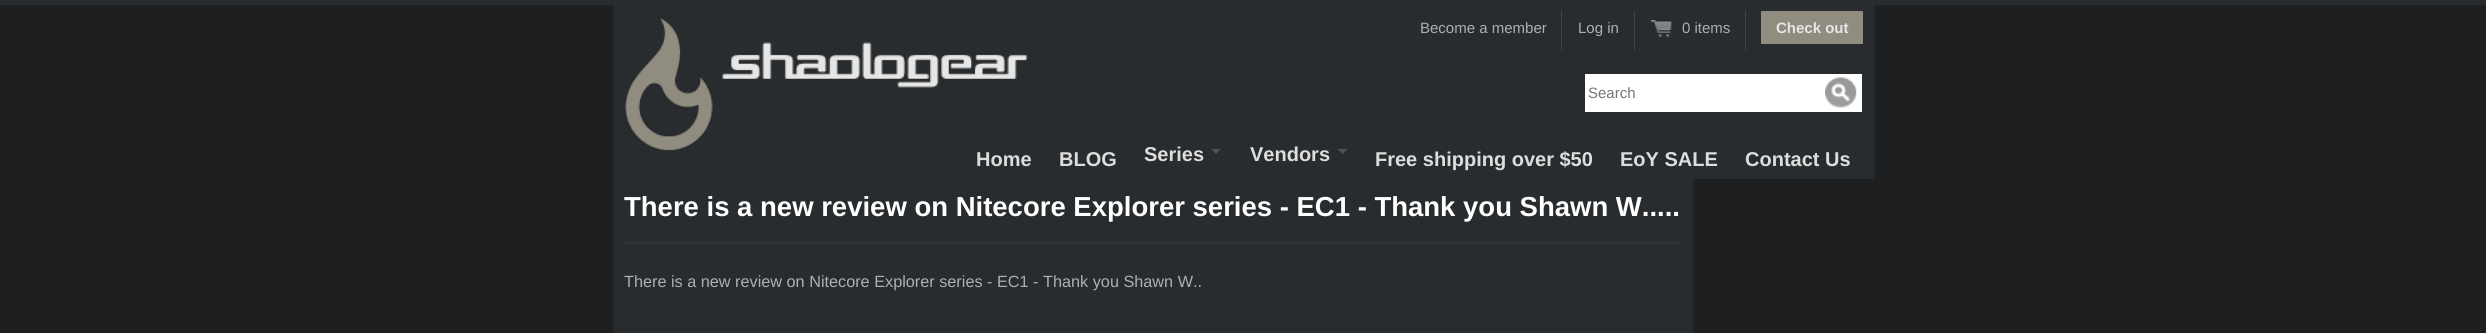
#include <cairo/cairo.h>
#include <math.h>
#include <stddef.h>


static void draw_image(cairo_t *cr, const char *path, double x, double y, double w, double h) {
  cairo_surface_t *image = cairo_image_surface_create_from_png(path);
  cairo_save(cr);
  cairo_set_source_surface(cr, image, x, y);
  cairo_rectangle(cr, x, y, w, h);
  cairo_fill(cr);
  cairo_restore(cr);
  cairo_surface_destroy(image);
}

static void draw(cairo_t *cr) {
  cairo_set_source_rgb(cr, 29 / 255.0, 31 / 255.0, 32 / 255.0);
  cairo_paint(cr);
  cairo_set_source_rgb(cr, 40 / 255.0, 44 / 255.0, 46 / 255.0);
  cairo_rectangle(cr, 0, 0, 2486, 5);
  cairo_fill(cr);
  cairo_rectangle(cr, 613, 5, 1262, 174);
  cairo_fill(cr);
  draw_image(cr, "images/1.png", 625, 16, 403, 135);
  cairo_set_source_rgb(cr, 68 / 255.0, 68 / 255.0, 68 / 255.0);
  cairo_rectangle(cr, 1561, 11, 1, 39);
  cairo_fill(cr);
  cairo_rectangle(cr, 1634, 11, 1, 39);
  cairo_fill(cr);
  cairo_rectangle(cr, 1745, 11, 1, 39);
  cairo_fill(cr);
  draw_image(cr, "images/2.png", 1650, 19, 22, 18);
  cairo_set_source_rgb(cr, 145 / 255.0, 140 / 255.0, 128 / 255.0);
  cairo_rectangle(cr, 1761, 11, 102, 33);
  cairo_fill(cr);
  cairo_set_source_rgb(cr, 1, 1, 1);
  cairo_rectangle(cr, 1585, 74, 277, 38);
  cairo_fill(cr);
  draw_image(cr, "images/3.png", 1825, 77, 32, 31);
  cairo_set_source_rgb(cr, 85 / 255.0, 75 / 255.0, 96 / 255.0);
  cairo_new_path(cr);
  cairo_move_to(cr, 1211, 149);
  cairo_line_to(cr, 1221, 149);
  cairo_line_to(cr, 1216, 154);
  cairo_close_path(cr);
  cairo_fill(cr);
  cairo_new_path(cr);
  cairo_move_to(cr, 1337.5, 149);
  cairo_line_to(cr, 1347.5, 149);
  cairo_line_to(cr, 1342.5, 154);
  cairo_close_path(cr);
  cairo_fill(cr);
  cairo_set_source_rgb(cr, 40 / 255.0, 44 / 255.0, 46 / 255.0);
  cairo_rectangle(cr, 613, 179, 1080, 154);
  cairo_fill(cr);
  cairo_new_path(cr);
  cairo_move_to(cr, 625, 243);
  cairo_line_to(cr, 1680, 243);
  cairo_set_source_rgb(cr, 65 / 255.0, 71 / 255.0, 74 / 255.0);
  cairo_set_line_width(cr, 1.2);
  cairo_set_dash(cr, (double[]){1.25, 1.25}, 2, 0);
  cairo_stroke(cr);
  cairo_select_font_face(cr, "Liberation Sans", CAIRO_FONT_SLANT_NORMAL, CAIRO_FONT_WEIGHT_NORMAL);
  cairo_set_font_size(cr, 15);
  cairo_set_source_rgb(cr, 175 / 255.0, 175 / 255.0, 175 / 255.0);
  cairo_move_to(cr, 1420, 33);
  cairo_show_text(cr, "Become a member");
  cairo_move_to(cr, 1578, 33);
  cairo_show_text(cr, "Log in");
  cairo_move_to(cr, 1682, 33);
  cairo_show_text(cr, "0 items");
  cairo_select_font_face(cr, "Liberation Sans", CAIRO_FONT_SLANT_NORMAL, CAIRO_FONT_WEIGHT_BOLD);
  cairo_set_source_rgb(cr, 230 / 255.0, 230 / 255.0, 230 / 255.0);
  cairo_move_to(cr, 1776, 33);
  cairo_show_text(cr, "Check out");
  cairo_select_font_face(cr, "Liberation Sans", CAIRO_FONT_SLANT_NORMAL, CAIRO_FONT_WEIGHT_NORMAL);
  cairo_set_source_rgb(cr, 117 / 255.0, 117 / 255.0, 117 / 255.0);
  cairo_move_to(cr, 1588, 98);
  cairo_show_text(cr, "Search");
  cairo_select_font_face(cr, "Liberation Sans", CAIRO_FONT_SLANT_NORMAL, CAIRO_FONT_WEIGHT_BOLD);
  cairo_set_font_size(cr, 20);
  cairo_set_source_rgb(cr, 221 / 255.0, 221 / 255.0, 221 / 255.0);
  cairo_move_to(cr, 976, 166);
  cairo_show_text(cr, "Home");
  cairo_move_to(cr, 1059, 166);
  cairo_show_text(cr, "BLOG");
  cairo_move_to(cr, 1144, 161);
  cairo_show_text(cr, "Series");
  cairo_move_to(cr, 1250, 161);
  cairo_show_text(cr, "Vendors");
  cairo_move_to(cr, 1375, 166);
  cairo_show_text(cr, "Free shipping over $50");
  cairo_move_to(cr, 1620, 166);
  cairo_show_text(cr, "EoY SALE");
  cairo_move_to(cr, 1745, 166);
  cairo_show_text(cr, "Contact Us");
  cairo_set_font_size(cr, 27.5);
  cairo_set_source_rgb(cr, 1, 1, 1);
  cairo_move_to(cr, 624, 216);
  cairo_show_text(cr, "There is a new review on Nitecore Explorer series - EC1 - Thank you Shawn W.....");
  cairo_select_font_face(cr, "Liberation Sans", CAIRO_FONT_SLANT_NORMAL, CAIRO_FONT_WEIGHT_NORMAL);
  cairo_set_font_size(cr, 16.25);
  cairo_set_source_rgb(cr, 175 / 255.0, 175 / 255.0, 175 / 255.0);
  cairo_move_to(cr, 624, 287);
  cairo_show_text(cr, "There is a new review on Nitecore Explorer series - EC1 - Thank you Shawn W..");
}

int main(void) {
  cairo_surface_t *surface = cairo_image_surface_create(CAIRO_FORMAT_RGB24, 2486, 333);
  cairo_t *cr = cairo_create(surface);
  cairo_font_options_t *options = cairo_font_options_create();
  cairo_font_options_set_hint_metrics(options, CAIRO_HINT_METRICS_OFF);
  cairo_font_options_set_hint_style(options, CAIRO_HINT_STYLE_NONE);
  cairo_set_font_options(cr, options);
  cairo_set_miter_limit(cr, 4);
  draw(cr);
  cairo_surface_write_to_png(surface, "out.png");
  cairo_font_options_destroy(options);
  cairo_destroy(cr);
  cairo_surface_destroy(surface);
  return 0;
}
